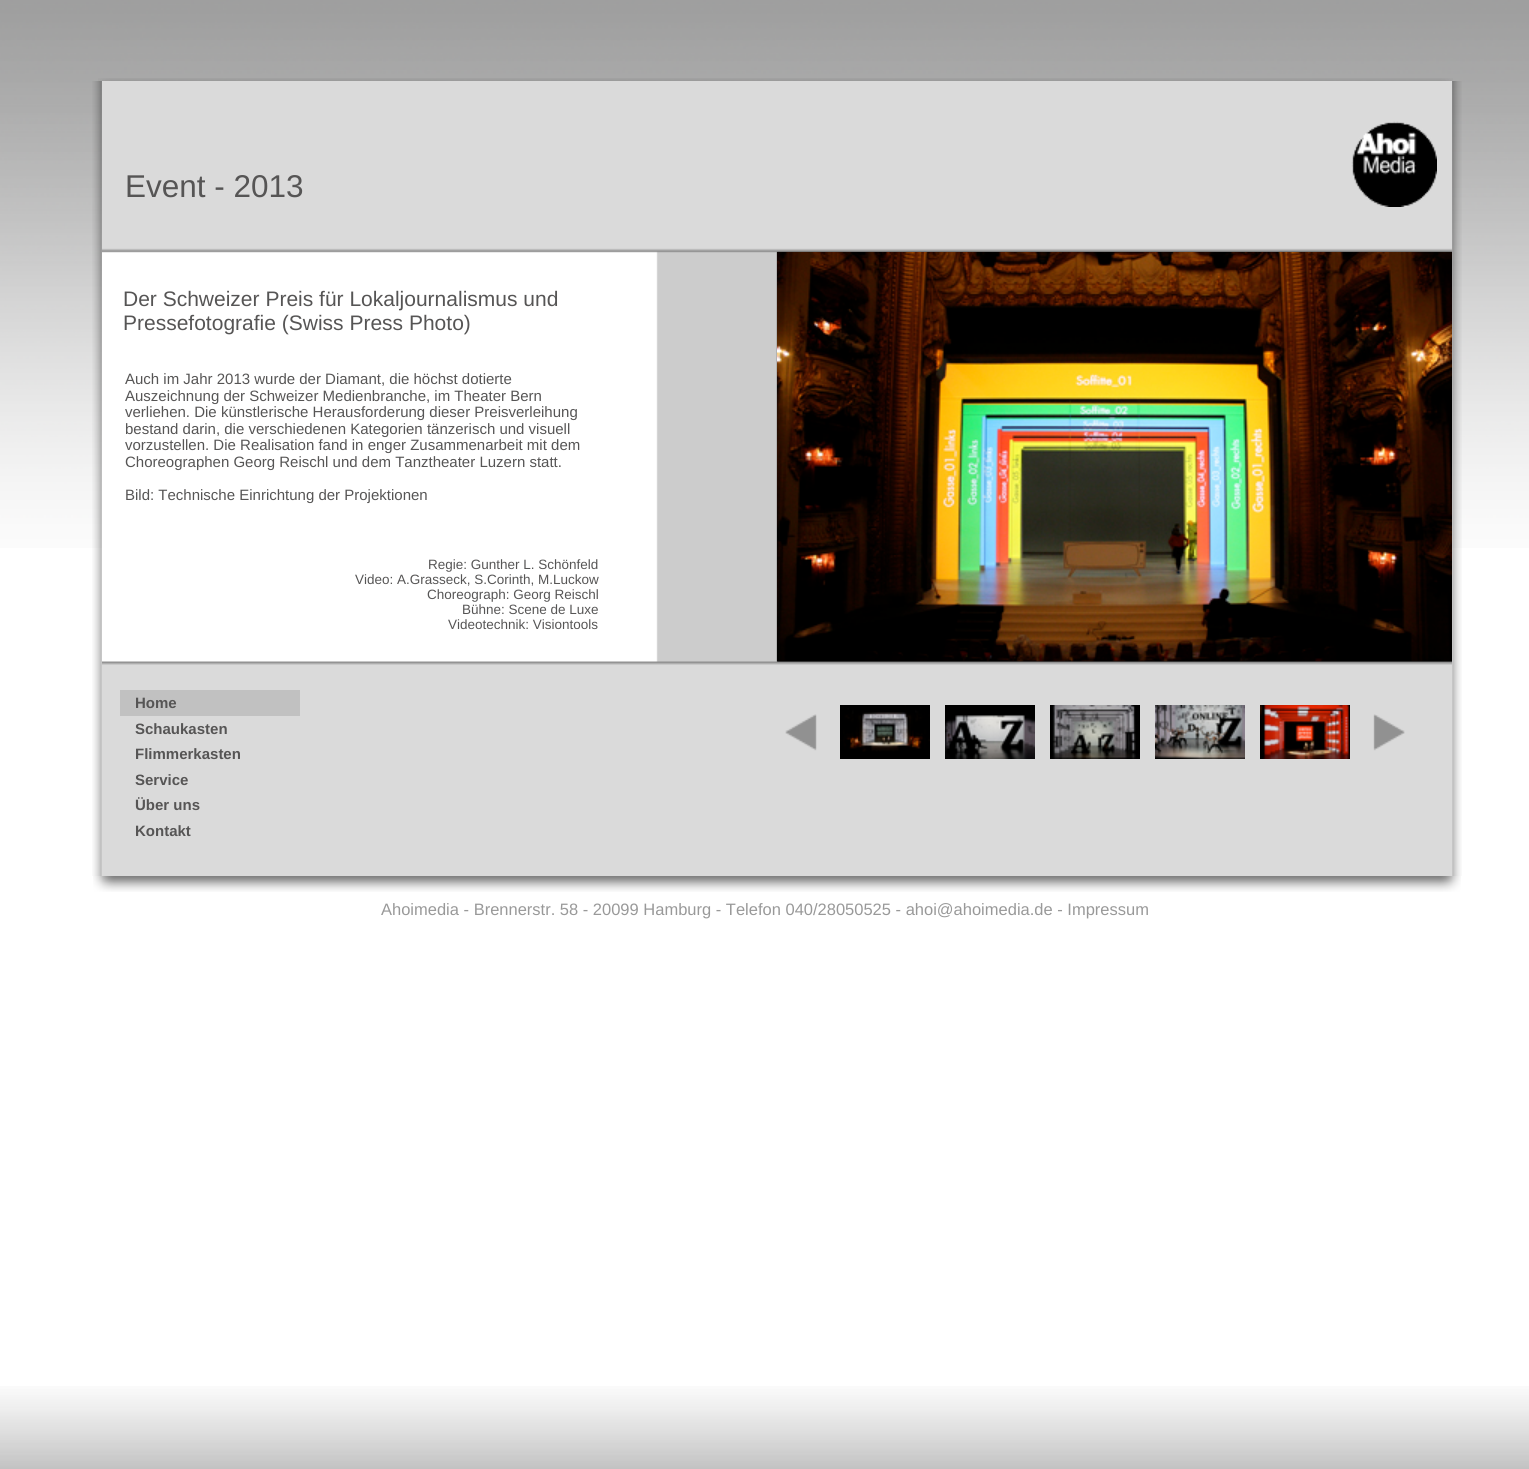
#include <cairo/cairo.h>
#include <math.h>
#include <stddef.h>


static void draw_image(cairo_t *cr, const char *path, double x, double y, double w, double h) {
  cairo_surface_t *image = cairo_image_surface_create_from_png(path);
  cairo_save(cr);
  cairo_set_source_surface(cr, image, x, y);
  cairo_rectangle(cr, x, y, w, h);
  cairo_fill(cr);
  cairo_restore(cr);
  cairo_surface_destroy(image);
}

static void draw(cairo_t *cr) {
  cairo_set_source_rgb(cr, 1, 1, 1);
  cairo_paint(cr);
  draw_image(cr, "images/1.png", 0, 0, 1529, 548);
  draw_image(cr, "images/2.png", 98, 78, 1355, 3);
  draw_image(cr, "images/4.png", 92, 81, 1370, 795);
  draw_image(cr, "images/5.png", 102, 81, 1350, 795);
  draw_image(cr, "images/3.png", 1351, 121, 86, 86);
  draw_image(cr, "images/6.png", 777, 252, 675, 410);
  cairo_set_source_rgb(cr, 193 / 255.0, 193 / 255.0, 193 / 255.0);
  cairo_rectangle(cr, 120, 690, 180, 26);
  cairo_fill(cr);
  draw_image(cr, "images/7.png", 785, 714, 32, 37);
  draw_image(cr, "images/8.png", 840, 705, 90, 54);
  draw_image(cr, "images/9.png", 945, 705, 90, 54);
  draw_image(cr, "images/10.png", 1050, 705, 90, 54);
  draw_image(cr, "images/11.png", 1155, 705, 90, 54);
  draw_image(cr, "images/12.png", 1260, 705, 90, 54);
  draw_image(cr, "images/13.png", 1373, 714, 32, 37);
  draw_image(cr, "images/14.png", 93, 876, 1368, 16);
  draw_image(cr, "images/15.png", 0, 1386, 1529, 83);
  cairo_select_font_face(cr, "Liberation Sans", CAIRO_FONT_SLANT_NORMAL, CAIRO_FONT_WEIGHT_NORMAL);
  cairo_set_font_size(cr, 31.5);
  cairo_set_source_rgb(cr, 86 / 255.0, 85 / 255.0, 85 / 255.0);
  cairo_move_to(cr, 125, 197);
  cairo_show_text(cr, "Event - 2013");
  cairo_set_font_size(cr, 21);
  cairo_move_to(cr, 123, 306);
  cairo_show_text(cr, "Der Schweizer Preis für Lokaljournalismus und");
  cairo_move_to(cr, 123, 330);
  cairo_show_text(cr, "Pressefotografie (Swiss Press Photo)");
  cairo_set_font_size(cr, 15);
  cairo_move_to(cr, 125, 384);
  cairo_show_text(cr, "Auch im Jahr 2013 wurde der Diamant, die höchst dotierte");
  cairo_move_to(cr, 125, 401);
  cairo_show_text(cr, "Auszeichnung der Schweizer Medienbranche, im Theater Bern");
  cairo_move_to(cr, 125, 417);
  cairo_show_text(cr, "verliehen. Die künstlerische Herausforderung dieser Preisverleihung");
  cairo_move_to(cr, 125, 434);
  cairo_show_text(cr, "bestand darin, die verschiedenen Kategorien tänzerisch und visuell");
  cairo_move_to(cr, 125, 450);
  cairo_show_text(cr, "vorzustellen. Die Realisation fand in enger Zusammenarbeit mit dem");
  cairo_move_to(cr, 125, 467);
  cairo_show_text(cr, "Choreographen Georg Reischl und dem Tanztheater Luzern statt.");
  cairo_move_to(cr, 125, 500);
  cairo_show_text(cr, "Bild: Technische Einrichtung der Projektionen");
  cairo_set_font_size(cr, 13.5);
  cairo_move_to(cr, 428, 569);
  cairo_show_text(cr, "Regie: Gunther L. Schönfeld");
  cairo_move_to(cr, 355, 584);
  cairo_show_text(cr, "Video: A.Grasseck, S.Corinth, M.Luckow");
  cairo_move_to(cr, 427, 599);
  cairo_show_text(cr, "Choreograph: Georg Reischl");
  cairo_move_to(cr, 462, 614);
  cairo_show_text(cr, "Bühne: Scene de Luxe");
  cairo_move_to(cr, 448, 629);
  cairo_show_text(cr, "Videotechnik: Visiontools");
  cairo_select_font_face(cr, "Liberation Sans", CAIRO_FONT_SLANT_NORMAL, CAIRO_FONT_WEIGHT_BOLD);
  cairo_set_font_size(cr, 15);
  cairo_move_to(cr, 135, 708);
  cairo_show_text(cr, "Home");
  cairo_move_to(cr, 135, 734);
  cairo_show_text(cr, "Schaukasten");
  cairo_move_to(cr, 135, 759);
  cairo_show_text(cr, "Flimmerkasten");
  cairo_move_to(cr, 135, 785);
  cairo_show_text(cr, "Service");
  cairo_move_to(cr, 135, 810);
  cairo_show_text(cr, "Über uns");
  cairo_move_to(cr, 135, 836);
  cairo_show_text(cr, "Kontakt");
  cairo_select_font_face(cr, "Liberation Sans", CAIRO_FONT_SLANT_NORMAL, CAIRO_FONT_WEIGHT_NORMAL);
  cairo_set_font_size(cr, 16.5);
  cairo_set_source_rgb(cr, 153 / 255.0, 153 / 255.0, 153 / 255.0);
  cairo_move_to(cr, 381, 915);
  cairo_show_text(cr, "Ahoimedia - Brennerstr. 58 - 20099 Hamburg - Telefon 040/28050525 - ahoi@ahoimedia.de - Impressum");
}

int main(void) {
  cairo_surface_t *surface = cairo_image_surface_create(CAIRO_FORMAT_RGB24, 1529, 1469);
  cairo_t *cr = cairo_create(surface);
  cairo_font_options_t *options = cairo_font_options_create();
  cairo_font_options_set_hint_metrics(options, CAIRO_HINT_METRICS_OFF);
  cairo_font_options_set_hint_style(options, CAIRO_HINT_STYLE_NONE);
  cairo_set_font_options(cr, options);
  cairo_set_miter_limit(cr, 4);
  draw(cr);
  cairo_surface_write_to_png(surface, "out.png");
  cairo_font_options_destroy(options);
  cairo_destroy(cr);
  cairo_surface_destroy(surface);
  return 0;
}
